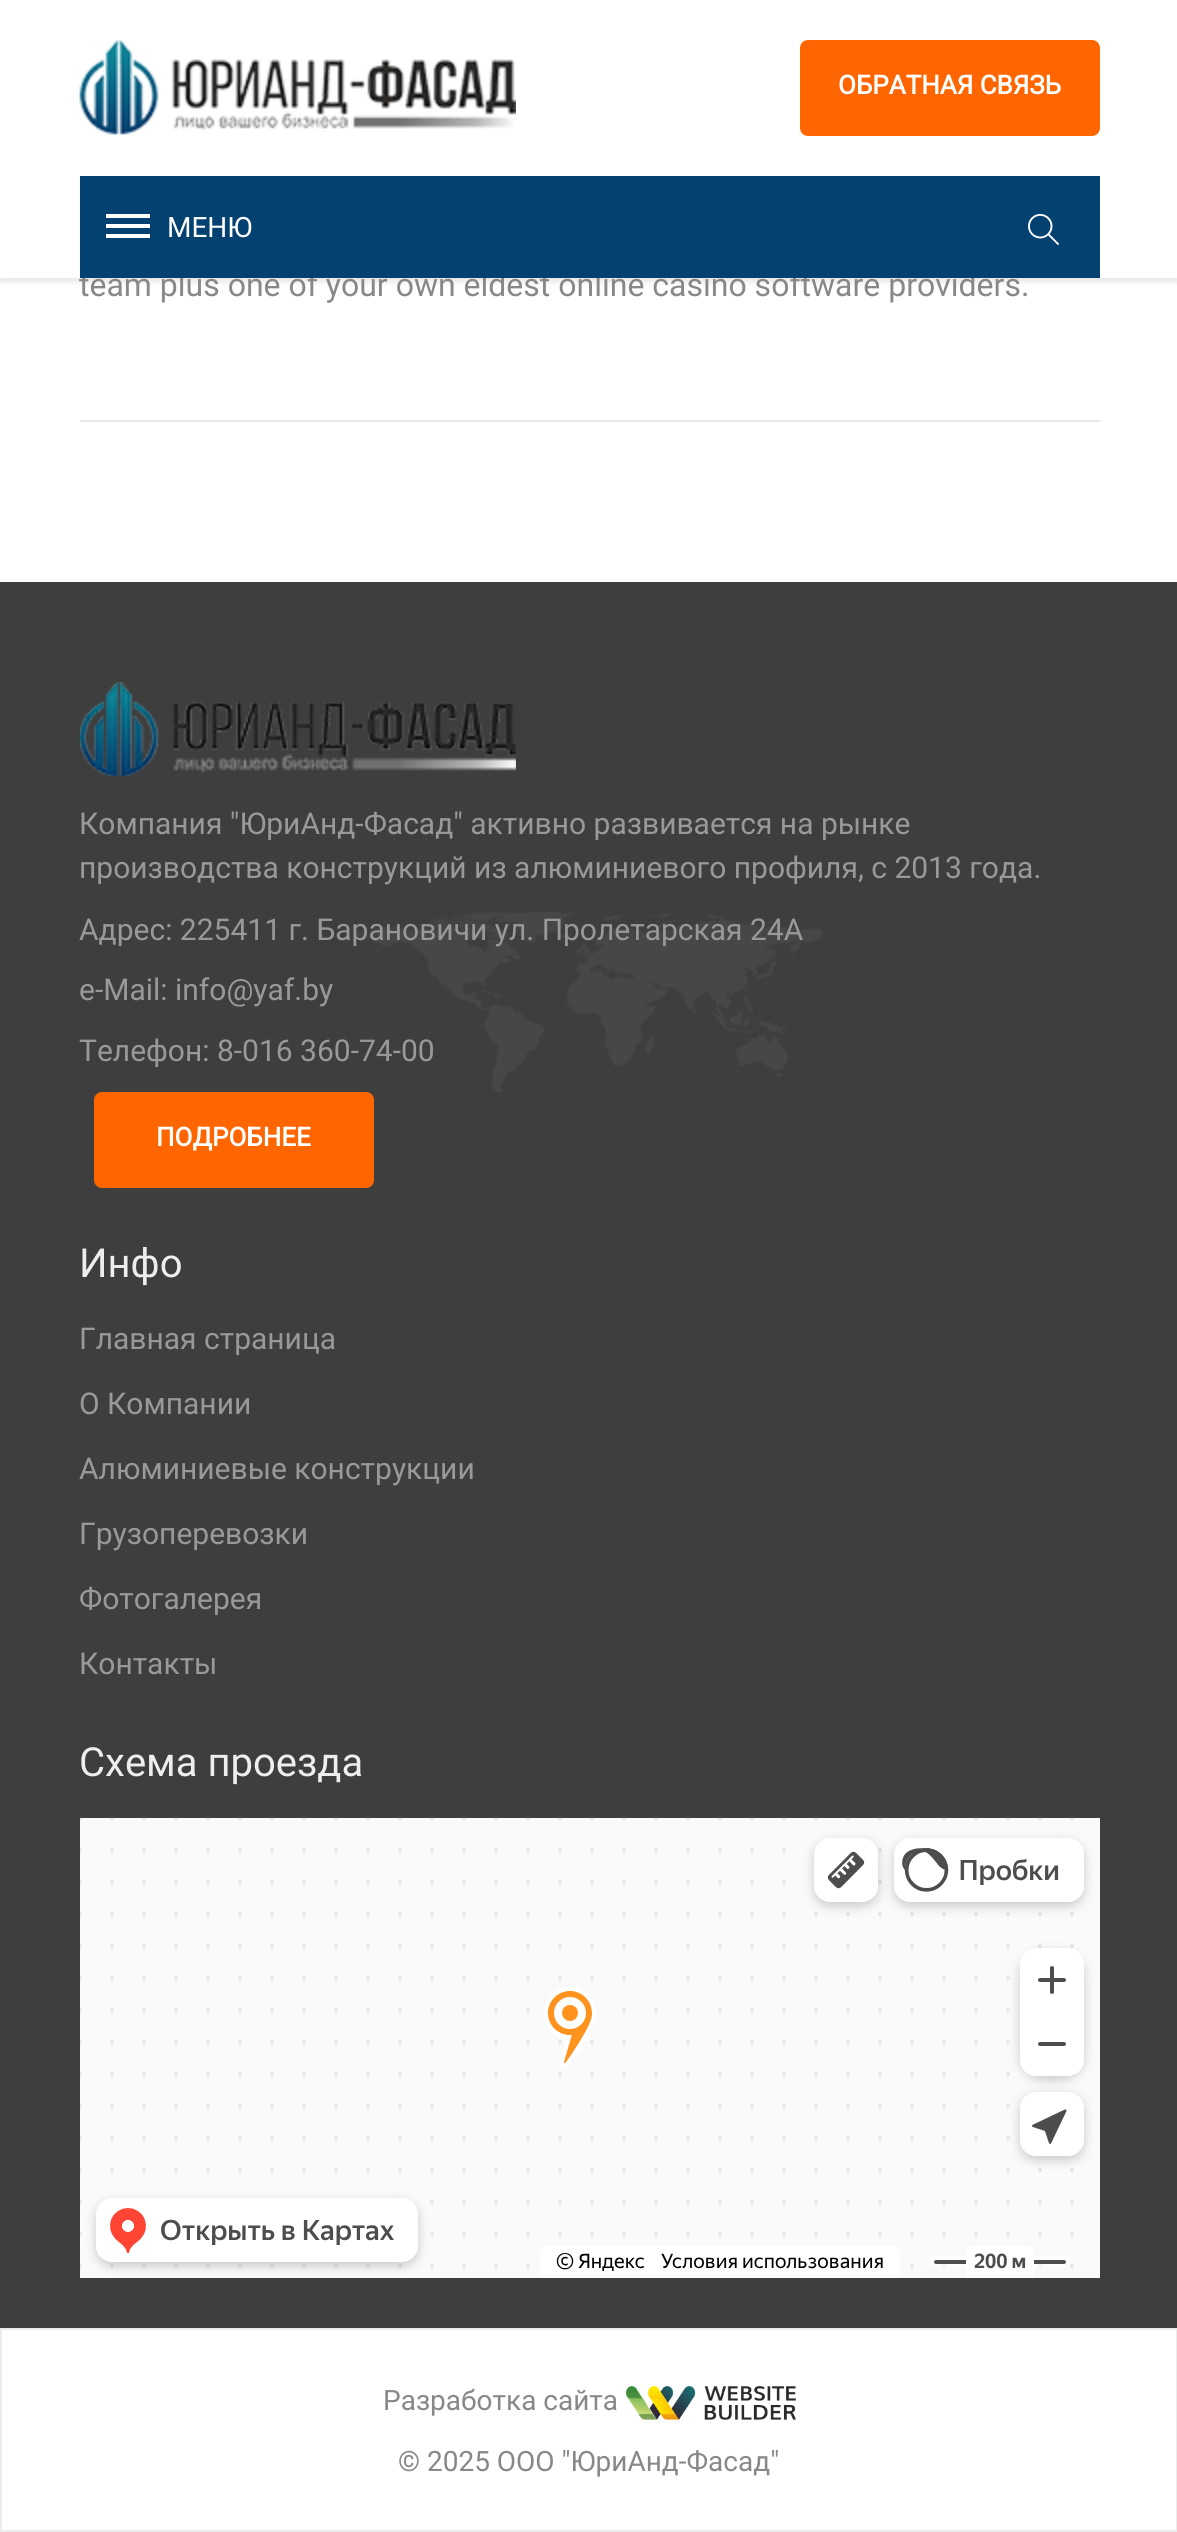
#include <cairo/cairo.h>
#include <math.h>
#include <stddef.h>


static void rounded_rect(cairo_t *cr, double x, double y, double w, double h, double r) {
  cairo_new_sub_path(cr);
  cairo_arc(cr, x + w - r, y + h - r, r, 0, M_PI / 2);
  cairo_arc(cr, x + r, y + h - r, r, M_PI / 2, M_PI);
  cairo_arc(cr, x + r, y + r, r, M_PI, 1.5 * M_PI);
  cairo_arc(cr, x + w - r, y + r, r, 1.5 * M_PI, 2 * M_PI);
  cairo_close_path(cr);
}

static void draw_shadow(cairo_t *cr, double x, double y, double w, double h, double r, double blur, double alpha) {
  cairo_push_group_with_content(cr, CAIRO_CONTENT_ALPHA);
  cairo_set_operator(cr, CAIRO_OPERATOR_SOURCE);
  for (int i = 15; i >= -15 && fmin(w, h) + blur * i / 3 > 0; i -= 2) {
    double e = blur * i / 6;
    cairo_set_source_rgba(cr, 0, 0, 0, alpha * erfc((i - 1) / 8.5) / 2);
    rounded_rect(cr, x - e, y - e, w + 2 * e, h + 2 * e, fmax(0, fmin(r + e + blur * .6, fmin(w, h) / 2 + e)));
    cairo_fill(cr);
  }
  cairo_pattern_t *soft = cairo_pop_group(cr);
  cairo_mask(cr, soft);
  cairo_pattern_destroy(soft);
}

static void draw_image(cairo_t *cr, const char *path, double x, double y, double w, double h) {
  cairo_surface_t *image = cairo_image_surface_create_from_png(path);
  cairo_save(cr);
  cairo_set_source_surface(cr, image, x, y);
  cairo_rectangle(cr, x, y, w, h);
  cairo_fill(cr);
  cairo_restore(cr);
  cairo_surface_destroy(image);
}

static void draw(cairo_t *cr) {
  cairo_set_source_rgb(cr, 1, 1, 1);
  cairo_paint(cr);
  cairo_set_source_rgb(cr, 0, 0, 0);
  draw_shadow(cr, 0, 4, 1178, 278, 0, 3, 0.1);
  cairo_set_source_rgb(cr, 232 / 255.0, 232 / 255.0, 232 / 255.0);
  cairo_rectangle(cr, 80, 420, 1020, 2);
  cairo_fill(cr);
  cairo_set_source_rgb(cr, 62 / 255.0, 62 / 255.0, 62 / 255.0);
  cairo_rectangle(cr, 0, 582, 1177, 1746);
  cairo_fill(cr);
  draw_image(cr, "images/3.png", 80, 682, 436, 94);
  draw_image(cr, "images/4.png", 356, 912, 466, 180);
  cairo_set_source_rgb(cr, 1, 102 / 255.0, 0);
  rounded_rect(cr, 94, 1092, 280, 96, 8);
  cairo_fill(cr);
  draw_image(cr, "images/5.png", 80, 1818, 1020, 460);
  cairo_rectangle(cr, 1, 2329, 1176, 202);
  cairo_set_source_rgb(cr, 236 / 255.0, 236 / 255.0, 236 / 255.0);
  cairo_stroke(cr);
  draw_image(cr, "images/6.png", 626, 2386, 170, 34);
  cairo_select_font_face(cr, "Roboto", CAIRO_FONT_SLANT_NORMAL, CAIRO_FONT_WEIGHT_NORMAL);
  cairo_set_font_size(cr, 32);
  cairo_set_source_rgb(cr, 136 / 255.0, 136 / 255.0, 136 / 255.0);
  cairo_move_to(cr, 79, 296);
  cairo_show_text(cr, "team plus one of your own eldest online casino software providers.");
  cairo_set_source_rgb(cr, 1, 1, 1);
  cairo_rectangle(cr, 0, 0, 1177, 278);
  cairo_fill(cr);
  cairo_set_source_rgb(cr, 3 / 255.0, 65 / 255.0, 112 / 255.0);
  cairo_rectangle(cr, 80, 176, 1020, 102);
  cairo_fill(cr);
  draw_image(cr, "images/2.png", 1028, 213, 32, 33);
  cairo_set_font_size(cr, 28);
  cairo_set_source_rgb(cr, 1, 1, 1);
  cairo_move_to(cr, 167, 237);
  cairo_show_text(cr, "МЕНЮ");
  cairo_rectangle(cr, 106, 234, 44, 4);
  cairo_fill(cr);
  cairo_rectangle(cr, 106, 224, 44, 4);
  cairo_fill(cr);
  cairo_rectangle(cr, 106, 214, 44, 4);
  cairo_fill(cr);
  cairo_set_source_rgb(cr, 1, 102 / 255.0, 0);
  rounded_rect(cr, 800, 40, 300, 96, 8);
  cairo_fill(cr);
  cairo_select_font_face(cr, "Roboto", CAIRO_FONT_SLANT_NORMAL, CAIRO_FONT_WEIGHT_BOLD);
  cairo_set_font_size(cr, 26);
  cairo_set_source_rgb(cr, 1, 1, 1);
  cairo_move_to(cr, 838, 94);
  cairo_show_text(cr, "ОБРАТНАЯ СВЯЗЬ");
  draw_image(cr, "images/1.png", 79, 40, 437, 95);
  cairo_select_font_face(cr, "Roboto", CAIRO_FONT_SLANT_NORMAL, CAIRO_FONT_WEIGHT_NORMAL);
  cairo_set_font_size(cr, 30);
  cairo_set_source_rgb(cr, 153 / 255.0, 153 / 255.0, 153 / 255.0);
  cairo_move_to(cr, 79, 834);
  cairo_show_text(cr, "Компания \"ЮриАнд-Фасад\" активно развивается на рынке");
  cairo_move_to(cr, 79, 878);
  cairo_show_text(cr, "производства конструкций из алюминиевого профиля, с 2013 года.");
  cairo_move_to(cr, 79, 940);
  cairo_show_text(cr, "Адрес: 225411 г. Барановичи ул. Пролетарская 24А");
  cairo_move_to(cr, 79, 1000);
  cairo_show_text(cr, "e-Mail: info@yaf.by");
  cairo_move_to(cr, 79, 1061);
  cairo_show_text(cr, "Телефон: 8-016 360-74-00");
  cairo_select_font_face(cr, "Roboto", CAIRO_FONT_SLANT_NORMAL, CAIRO_FONT_WEIGHT_BOLD);
  cairo_set_font_size(cr, 26);
  cairo_set_source_rgb(cr, 1, 1, 1);
  cairo_move_to(cr, 156, 1146);
  cairo_show_text(cr, "ПОДРОБНЕЕ");
  cairo_select_font_face(cr, "Roboto", CAIRO_FONT_SLANT_NORMAL, CAIRO_FONT_WEIGHT_NORMAL);
  cairo_set_font_size(cr, 40);
  cairo_set_source_rgb(cr, 238 / 255.0, 238 / 255.0, 238 / 255.0);
  cairo_move_to(cr, 79, 1277);
  cairo_show_text(cr, "Инфо");
  cairo_set_font_size(cr, 30);
  cairo_set_source_rgb(cr, 153 / 255.0, 153 / 255.0, 153 / 255.0);
  cairo_move_to(cr, 79, 1349);
  cairo_show_text(cr, "Главная страница");
  cairo_move_to(cr, 79, 1414);
  cairo_show_text(cr, "О Компании");
  cairo_move_to(cr, 79, 1479);
  cairo_show_text(cr, "Алюминиевые конструкции");
  cairo_move_to(cr, 79, 1544);
  cairo_show_text(cr, "Грузоперевозки");
  cairo_move_to(cr, 79, 1609);
  cairo_show_text(cr, "Фотогалерея");
  cairo_move_to(cr, 79, 1674);
  cairo_show_text(cr, "Контакты");
  cairo_set_font_size(cr, 40);
  cairo_set_source_rgb(cr, 238 / 255.0, 238 / 255.0, 238 / 255.0);
  cairo_move_to(cr, 79, 1776);
  cairo_show_text(cr, "Схема проезда");
  cairo_set_font_size(cr, 28);
  cairo_set_source_rgb(cr, 136 / 255.0, 136 / 255.0, 136 / 255.0);
  cairo_move_to(cr, 383, 2410);
  cairo_show_text(cr, "Разработка сайта");
  cairo_move_to(cr, 398, 2471);
  cairo_show_text(cr, "© 2025 ООО \"ЮриАнд-Фасад\"");
}

int main(void) {
  cairo_surface_t *surface = cairo_image_surface_create(CAIRO_FORMAT_RGB24, 1177, 2532);
  cairo_t *cr = cairo_create(surface);
  cairo_font_options_t *options = cairo_font_options_create();
  cairo_font_options_set_hint_metrics(options, CAIRO_HINT_METRICS_OFF);
  cairo_font_options_set_hint_style(options, CAIRO_HINT_STYLE_NONE);
  cairo_set_font_options(cr, options);
  cairo_set_miter_limit(cr, 4);
  draw(cr);
  cairo_surface_write_to_png(surface, "out.png");
  cairo_font_options_destroy(options);
  cairo_destroy(cr);
  cairo_surface_destroy(surface);
  return 0;
}
